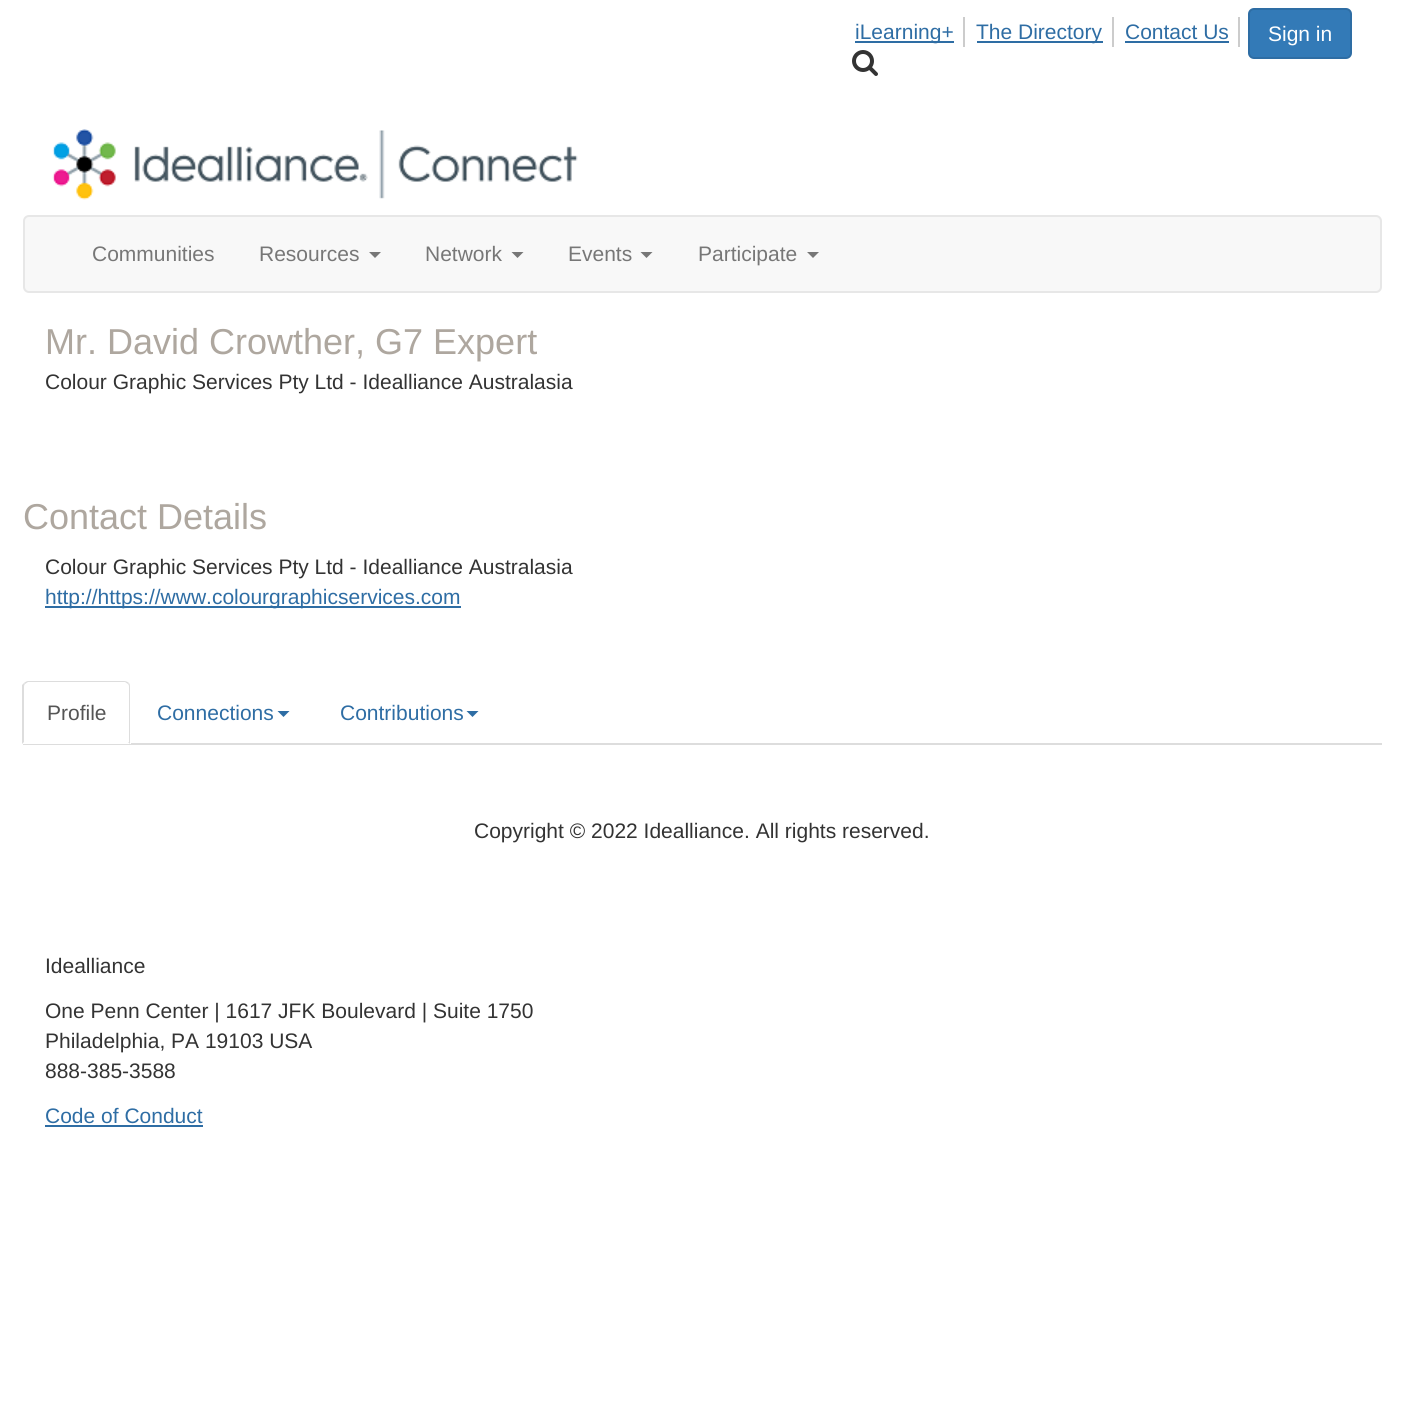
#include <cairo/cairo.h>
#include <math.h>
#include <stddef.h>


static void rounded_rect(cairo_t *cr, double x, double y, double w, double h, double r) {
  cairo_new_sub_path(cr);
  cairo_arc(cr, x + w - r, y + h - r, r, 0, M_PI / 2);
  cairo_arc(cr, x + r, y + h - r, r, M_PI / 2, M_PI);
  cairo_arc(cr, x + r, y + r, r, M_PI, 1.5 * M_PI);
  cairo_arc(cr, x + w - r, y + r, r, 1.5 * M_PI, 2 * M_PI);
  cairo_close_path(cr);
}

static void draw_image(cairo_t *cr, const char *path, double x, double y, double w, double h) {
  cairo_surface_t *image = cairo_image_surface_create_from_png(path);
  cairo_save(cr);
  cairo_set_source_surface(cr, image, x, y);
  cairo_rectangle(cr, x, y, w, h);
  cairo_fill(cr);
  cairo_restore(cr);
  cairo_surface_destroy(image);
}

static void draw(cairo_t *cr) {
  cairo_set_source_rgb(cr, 1, 1, 1);
  cairo_paint(cr);
  cairo_set_source_rgb(cr, 204 / 255.0, 204 / 255.0, 204 / 255.0);
  cairo_rectangle(cr, 963, 17, 2, 30);
  cairo_fill(cr);
  cairo_set_source_rgb(cr, 46 / 255.0, 109 / 255.0, 164 / 255.0);
  cairo_rectangle(cr, 855, 41, 99, 2);
  cairo_fill(cr);
  cairo_set_source_rgb(cr, 204 / 255.0, 204 / 255.0, 204 / 255.0);
  cairo_rectangle(cr, 1112, 17, 2, 30);
  cairo_fill(cr);
  cairo_set_source_rgb(cr, 46 / 255.0, 109 / 255.0, 164 / 255.0);
  cairo_rectangle(cr, 977, 41, 126, 2);
  cairo_fill(cr);
  cairo_set_source_rgb(cr, 204 / 255.0, 204 / 255.0, 204 / 255.0);
  cairo_rectangle(cr, 1238, 17, 2, 30);
  cairo_fill(cr);
  cairo_set_source_rgb(cr, 46 / 255.0, 109 / 255.0, 164 / 255.0);
  cairo_rectangle(cr, 1125, 41, 104, 2);
  cairo_fill(cr);
  draw_image(cr, "images/1.png", 852, 50, 26, 26);
  cairo_set_source_rgb(cr, 51 / 255.0, 122 / 255.0, 183 / 255.0);
  rounded_rect(cr, 1249, 9, 102, 49, 5);
  cairo_fill_preserve(cr);
  cairo_set_source_rgb(cr, 46 / 255.0, 109 / 255.0, 164 / 255.0);
  cairo_stroke(cr);
  draw_image(cr, "images/2.png", 52, 129, 526, 71);
  cairo_set_source_rgb(cr, 248 / 255.0, 248 / 255.0, 248 / 255.0);
  rounded_rect(cr, 24, 216, 1357, 76, 5);
  cairo_fill_preserve(cr);
  cairo_set_source_rgb(cr, 231 / 255.0, 231 / 255.0, 231 / 255.0);
  cairo_stroke(cr);
  cairo_set_source_rgb(cr, 119 / 255.0, 119 / 255.0, 119 / 255.0);
  cairo_new_path(cr);
  cairo_move_to(cr, 369, 252);
  cairo_line_to(cr, 381, 252);
  cairo_line_to(cr, 375, 258);
  cairo_close_path(cr);
  cairo_fill(cr);
  cairo_new_path(cr);
  cairo_move_to(cr, 511.5, 252);
  cairo_line_to(cr, 523.5, 252);
  cairo_line_to(cr, 517.5, 258);
  cairo_close_path(cr);
  cairo_fill(cr);
  cairo_new_path(cr);
  cairo_move_to(cr, 640.5, 252);
  cairo_line_to(cr, 652.5, 252);
  cairo_line_to(cr, 646.5, 258);
  cairo_close_path(cr);
  cairo_fill(cr);
  cairo_new_path(cr);
  cairo_move_to(cr, 807, 252);
  cairo_line_to(cr, 819, 252);
  cairo_line_to(cr, 813, 258);
  cairo_close_path(cr);
  cairo_fill(cr);
  cairo_set_source_rgb(cr, 46 / 255.0, 109 / 255.0, 164 / 255.0);
  cairo_rectangle(cr, 45, 606, 416, 2);
  cairo_fill(cr);
  cairo_set_source_rgb(cr, 221 / 255.0, 221 / 255.0, 221 / 255.0);
  cairo_rectangle(cr, 23, 743, 1359, 2);
  cairo_fill(cr);
  cairo_set_source_rgb(cr, 1, 1, 1);
  cairo_new_path(cr);
  cairo_move_to(cr, 29, 681);
  cairo_line_to(cr, 125, 681);
  cairo_curve_to(cr, 128.5, 681, 131, 683.5, 131, 687);
  cairo_line_to(cr, 131, 744);
  cairo_line_to(cr, 23, 744);
  cairo_line_to(cr, 23, 687);
  cairo_curve_to(cr, 23, 683.5, 25.5, 681, 29, 681);
  cairo_close_path(cr);
  cairo_fill(cr);
  cairo_set_source_rgb(cr, 221 / 255.0, 221 / 255.0, 221 / 255.0);
  cairo_new_path(cr);
  cairo_move_to(cr, 28, 681);
  cairo_curve_to(cr, 27, 681, 25, 682, 24, 683);
  cairo_line_to(cr, 25, 684);
  cairo_line_to(cr, 28, 682);
  cairo_line_to(cr, 125, 682);
  cairo_line_to(cr, 128, 684);
  cairo_line_to(cr, 129, 683);
  cairo_curve_to(cr, 128, 682, 126, 681, 124, 681);
  cairo_close_path(cr);
  cairo_fill(cr);
  cairo_new_path(cr);
  cairo_move_to(cr, 129, 683);
  cairo_curve_to(cr, 130, 684, 130, 686, 130, 687);
  cairo_line_to(cr, 130, 744);
  cairo_line_to(cr, 128, 742);
  cairo_line_to(cr, 129, 742);
  cairo_line_to(cr, 129, 687);
  cairo_curve_to(cr, 129, 686, 129, 685, 128, 684);
  cairo_close_path(cr);
  cairo_fill(cr);
  cairo_new_path(cr);
  cairo_move_to(cr, 22, 744);
  cairo_line_to(cr, 22, 685);
  cairo_line_to(cr, 24, 683);
  cairo_line_to(cr, 25, 684);
  cairo_curve_to(cr, 24, 685, 24, 686, 24, 687);
  cairo_line_to(cr, 24, 742);
  cairo_close_path(cr);
  cairo_fill(cr);
  cairo_set_source_rgb(cr, 46 / 255.0, 109 / 255.0, 164 / 255.0);
  cairo_new_path(cr);
  cairo_move_to(cr, 277.5, 711);
  cairo_line_to(cr, 289.5, 711);
  cairo_line_to(cr, 283.5, 717);
  cairo_close_path(cr);
  cairo_fill(cr);
  cairo_new_path(cr);
  cairo_move_to(cr, 466.5, 711);
  cairo_line_to(cr, 478.5, 711);
  cairo_line_to(cr, 472.5, 717);
  cairo_close_path(cr);
  cairo_fill(cr);
  cairo_rectangle(cr, 45, 1125, 158, 2);
  cairo_fill(cr);
  cairo_select_font_face(cr, "Liberation Sans", CAIRO_FONT_SLANT_NORMAL, CAIRO_FONT_WEIGHT_NORMAL);
  cairo_set_font_size(cr, 21);
  cairo_move_to(cr, 855, 39);
  cairo_show_text(cr, "iLearning+");
  cairo_move_to(cr, 976, 39);
  cairo_show_text(cr, "The Directory");
  cairo_move_to(cr, 1125, 39);
  cairo_show_text(cr, "Contact Us");
  cairo_set_source_rgb(cr, 1, 1, 1);
  cairo_move_to(cr, 1268, 41);
  cairo_show_text(cr, "Sign in");
  cairo_set_source_rgb(cr, 119 / 255.0, 119 / 255.0, 119 / 255.0);
  cairo_move_to(cr, 92, 261);
  cairo_show_text(cr, "Communities");
  cairo_move_to(cr, 259, 261);
  cairo_show_text(cr, "Resources");
  cairo_move_to(cr, 425, 261);
  cairo_show_text(cr, "Network");
  cairo_move_to(cr, 568, 261);
  cairo_show_text(cr, "Events");
  cairo_move_to(cr, 698, 261);
  cairo_show_text(cr, "Participate");
  cairo_set_font_size(cr, 36);
  cairo_set_source_rgb(cr, 174 / 255.0, 167 / 255.0, 159 / 255.0);
  cairo_move_to(cr, 45, 354);
  cairo_show_text(cr, "Mr. David Crowther, G7 Expert");
  cairo_set_font_size(cr, 21);
  cairo_set_source_rgb(cr, 51 / 255.0, 51 / 255.0, 51 / 255.0);
  cairo_move_to(cr, 45, 389);
  cairo_show_text(cr, "Colour Graphic Services Pty Ltd - Idealliance Australasia");
  cairo_set_font_size(cr, 36);
  cairo_set_source_rgb(cr, 174 / 255.0, 167 / 255.0, 159 / 255.0);
  cairo_move_to(cr, 23, 529);
  cairo_show_text(cr, "Contact Details");
  cairo_set_font_size(cr, 21);
  cairo_set_source_rgb(cr, 51 / 255.0, 51 / 255.0, 51 / 255.0);
  cairo_move_to(cr, 45, 574);
  cairo_show_text(cr, "Colour Graphic Services Pty Ltd - Idealliance Australasia");
  cairo_set_source_rgb(cr, 46 / 255.0, 109 / 255.0, 164 / 255.0);
  cairo_move_to(cr, 45, 604);
  cairo_show_text(cr, "http://https://www.colourgraphicservices.com");
  cairo_set_source_rgb(cr, 85 / 255.0, 85 / 255.0, 85 / 255.0);
  cairo_move_to(cr, 47, 720);
  cairo_show_text(cr, "Profile");
  cairo_set_source_rgb(cr, 46 / 255.0, 109 / 255.0, 164 / 255.0);
  cairo_move_to(cr, 157, 720);
  cairo_show_text(cr, "Connections");
  cairo_move_to(cr, 340, 720);
  cairo_show_text(cr, "Contributions");
  cairo_set_source_rgb(cr, 51 / 255.0, 51 / 255.0, 51 / 255.0);
  cairo_move_to(cr, 474, 838);
  cairo_show_text(cr, "Copyright © 2022 Idealliance. All rights reserved.");
  cairo_move_to(cr, 45, 973);
  cairo_show_text(cr, "Idealliance");
  cairo_move_to(cr, 45, 1018);
  cairo_show_text(cr, "One Penn Center | 1617 JFK Boulevard | Suite 1750");
  cairo_move_to(cr, 45, 1048);
  cairo_show_text(cr, "Philadelphia, PA 19103 USA");
  cairo_move_to(cr, 45, 1078);
  cairo_show_text(cr, "888-385-3588");
  cairo_set_source_rgb(cr, 46 / 255.0, 109 / 255.0, 164 / 255.0);
  cairo_move_to(cr, 45, 1123);
  cairo_show_text(cr, "Code of Conduct");
}

int main(void) {
  cairo_surface_t *surface = cairo_image_surface_create(CAIRO_FORMAT_RGB24, 1403, 1415);
  cairo_t *cr = cairo_create(surface);
  cairo_font_options_t *options = cairo_font_options_create();
  cairo_font_options_set_hint_metrics(options, CAIRO_HINT_METRICS_OFF);
  cairo_font_options_set_hint_style(options, CAIRO_HINT_STYLE_NONE);
  cairo_set_font_options(cr, options);
  cairo_set_miter_limit(cr, 4);
  draw(cr);
  cairo_surface_write_to_png(surface, "out.png");
  cairo_font_options_destroy(options);
  cairo_destroy(cr);
  cairo_surface_destroy(surface);
  return 0;
}
